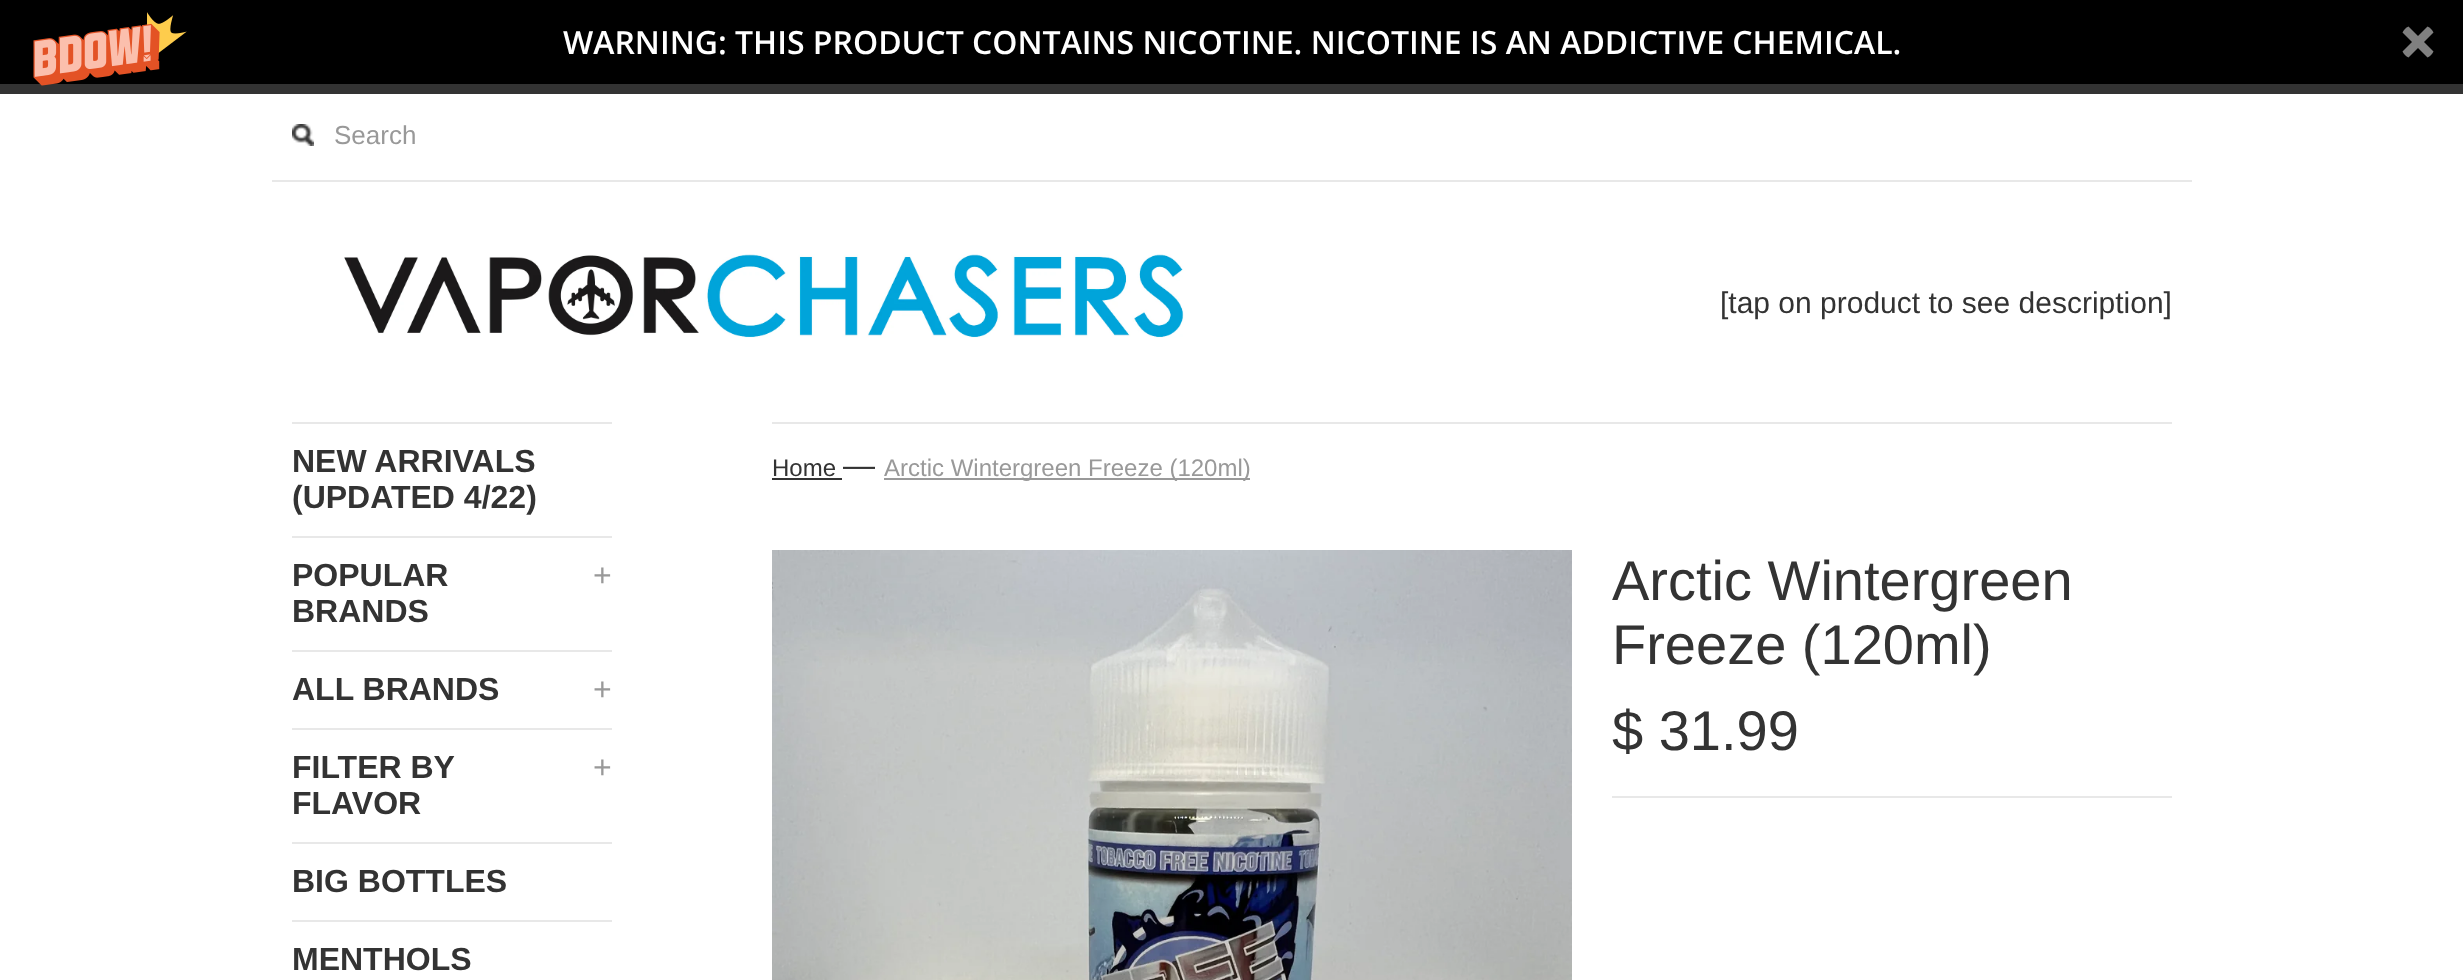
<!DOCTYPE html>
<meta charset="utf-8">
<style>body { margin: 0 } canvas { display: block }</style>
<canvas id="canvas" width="2463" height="980"></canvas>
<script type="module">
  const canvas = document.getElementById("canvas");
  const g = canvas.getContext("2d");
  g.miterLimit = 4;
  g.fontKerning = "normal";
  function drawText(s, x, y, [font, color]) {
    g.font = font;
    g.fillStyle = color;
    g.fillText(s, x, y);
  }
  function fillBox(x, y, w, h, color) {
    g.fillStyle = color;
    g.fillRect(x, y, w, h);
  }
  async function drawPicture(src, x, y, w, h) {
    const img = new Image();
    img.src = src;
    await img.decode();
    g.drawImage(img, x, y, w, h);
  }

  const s1 = ["600 32px Open Sans", "#FFFFFF"];
  const s2 = ["26px Liberation Sans", "#999999"];
  const s3 = ["30px Liberation Sans", "#333333"];
  const s4 = ["bold 32px Liberation Sans", "#333333"];
  const s5 = ["32px Liberation Sans", "#999999"];
  const s6 = ["24px Liberation Sans", "#333333"];
  const s7 = ["32px Liberation Sans", "#333333"];
  const s8 = ["24px Liberation Sans", "#999999"];
  const s9 = ["56px Liberation Sans", "#333333"];

  fillBox(0, 0, 2463, 980, "#FFFFFF");
  fillBox(0, 0, 2463, 84, "#000000");
  fillBox(0, 84, 2463, 10, "#333333");
  await drawPicture("pic1.png", 33, 12, 154, 74);
  drawText("WARNING: THIS PRODUCT CONTAINS NICOTINE. NICOTINE IS AN ADDICTIVE CHEMICAL.", 563, 54, s1);
  g.fillStyle = "#808080";
  g.beginPath();
  g.moveTo(2402.5, 51.5);
  g.lineTo(2427.5, 26.5);
  g.bezierCurveTo(2430, 27.5, 2432.5, 30, 2433.5, 32.5);
  g.lineTo(2408.5, 57.5);
  g.bezierCurveTo(2406, 56.5, 2403.5, 54, 2402.5, 51.5);
  g.closePath();
  g.fill();
  g.beginPath();
  g.moveTo(2433.5, 51.5);
  g.bezierCurveTo(2432.5, 54, 2430, 56.5, 2427.5, 57.5);
  g.lineTo(2402.5, 32.5);
  g.bezierCurveTo(2403.5, 30, 2406, 27.5, 2408.5, 26.5);
  g.closePath();
  g.fill();
  fillBox(272, 180, 1920, 2, "#E8E8E8");
  await drawPicture("pic2.png", 292, 124, 22, 22);
  drawText("Search", 334, 144, s2);
  await drawPicture("pic3.png", 344, 254, 840, 84);
  drawText("[tap on product to see description]", 1720, 313, s3);
  fillBox(292, 422, 320, 2, "#E8E8E8");
  drawText("NEW ARRIVALS", 292, 472, s4);
  drawText("(UPDATED 4/22)", 292, 508, s4);
  fillBox(292, 536, 320, 2, "#E8E8E8");
  drawText("POPULAR", 292, 586, s4);
  drawText("+", 593, 586, s5);
  drawText("BRANDS", 292, 622, s4);
  fillBox(292, 650, 320, 2, "#E8E8E8");
  drawText("ALL BRANDS", 292, 700, s4);
  drawText("+", 593, 700, s5);
  fillBox(292, 728, 320, 2, "#E8E8E8");
  drawText("FILTER BY", 292, 778, s4);
  drawText("+", 593, 778, s5);
  drawText("FLAVOR", 292, 814, s4);
  fillBox(292, 842, 320, 2, "#E8E8E8");
  drawText("BIG BOTTLES", 292, 892, s4);
  fillBox(292, 920, 320, 2, "#E8E8E8");
  drawText("MENTHOLS", 292, 970, s4);
  fillBox(772, 422, 1400, 2, "#E8E8E8");
  drawText("Home", 772, 476, s6);
  fillBox(772, 478, 70, 2, "#333333");
  drawText("—", 843, 476, s7);
  fillBox(884, 478, 366, 2, "#999999");
  drawText("Arctic Wintergreen Freeze (120ml)", 884, 476, s8);
  await drawPicture("pic4.png", 772, 550, 800, 430);
  drawText("Arctic Wintergreen", 1612, 600, s9);
  drawText("Freeze (120ml)", 1612, 664, s9);
  drawText("$ 31.99", 1612, 750, s9);
  fillBox(1612, 796, 560, 2, "#E8E8E8");
</script>
